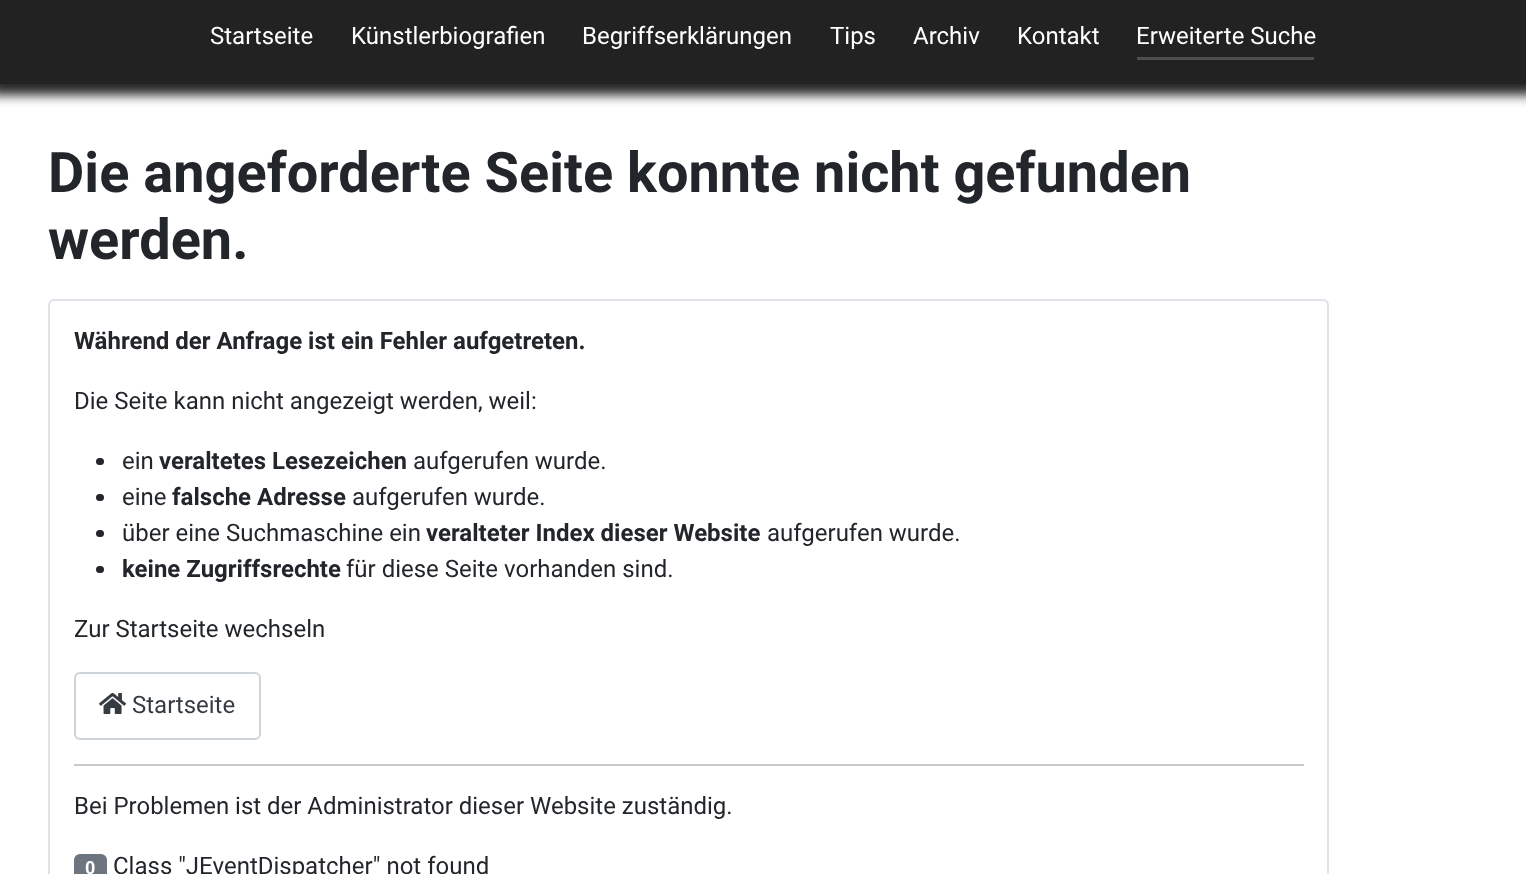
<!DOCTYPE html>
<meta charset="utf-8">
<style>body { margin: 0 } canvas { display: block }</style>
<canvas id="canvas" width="1526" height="874"></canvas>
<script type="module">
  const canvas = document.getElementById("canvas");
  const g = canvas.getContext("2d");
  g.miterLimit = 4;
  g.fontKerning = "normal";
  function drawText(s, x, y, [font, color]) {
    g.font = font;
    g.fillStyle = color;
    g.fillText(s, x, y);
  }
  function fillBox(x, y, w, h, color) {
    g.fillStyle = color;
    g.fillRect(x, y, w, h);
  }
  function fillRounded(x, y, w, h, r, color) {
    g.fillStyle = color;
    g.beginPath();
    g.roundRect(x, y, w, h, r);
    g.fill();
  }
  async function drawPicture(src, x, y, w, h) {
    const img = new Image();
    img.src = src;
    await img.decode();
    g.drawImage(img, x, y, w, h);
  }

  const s1 = ["24px Roboto", "#FFFFFF"];
  const s2 = ["bold 55.9px Roboto", "#22262A"];
  const s3 = ["bold 24px Roboto", "#22262A"];
  const s4 = ["24px Roboto", "#22262A"];
  const s5 = ["24px Roboto", "#353B41"];
  const s6 = ["bold 18px Roboto", "#FFFFFF"];

  fillBox(0, 0, 1526, 874, "#FFFFFF");
  g.fillStyle = "rgba(0, 0, 0, 0.85)";
  g.filter = "blur(6px)";
  g.beginPath();
  g.rect(-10, -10, 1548, 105);
  g.fill();
  g.filter = "none";
  fillBox(0, 0, 1526, 84, "#222222");
  drawText("Startseite", 210, 44, s1);
  drawText("Künstlerbiografien", 351, 44, s1);
  drawText("Begriffserklärungen", 582, 44, s1);
  drawText("Tips", 830, 44, s1);
  drawText("Archiv", 913, 44, s1);
  drawText("Kontakt", 1017, 44, s1);
  drawText("Erweiterte Suche", 1136, 44, s1);
  fillBox(1137, 57, 177, 3, "#4E4E4E");
  drawText("Die angeforderte Seite konnte nicht gefunden", 48, 192, s2);
  drawText("werden.", 48, 259, s2);
  g.beginPath();
  g.roundRect(49, 300, 1279, 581, 5);
  g.strokeStyle = "#DFE3E7";
  g.lineWidth = 2;
  g.stroke();
  drawText("Während der Anfrage ist ein Fehler aufgetreten.", 74, 349, s3);
  drawText("Die Seite kann nicht angezeigt werden, weil:", 74, 409, s4);
  fillRounded(96, 458, 8, 7, 3.5, "#22262A");
  drawText("ein", 122, 469, s4);
  drawText("veraltetes Lesezeichen", 159, 469, s3);
  drawText("aufgerufen wurde.", 413, 469, s4);
  fillRounded(96, 494, 8, 7, 3.5, "#22262A");
  drawText("eine", 122, 505, s4);
  drawText("falsche Adresse", 172, 505, s3);
  drawText("aufgerufen wurde.", 352, 505, s4);
  fillRounded(96, 530, 8, 7, 3.5, "#22262A");
  drawText("über eine Suchmaschine ein", 122, 541, s4);
  drawText("veralteter Index dieser Website", 426, 541, s3);
  drawText("aufgerufen wurde.", 767, 541, s4);
  fillRounded(96, 566, 8, 7, 3.5, "#22262A");
  drawText("keine Zugriffsrechte", 122, 577, s3);
  drawText("für diese Seite vorhanden sind.", 346, 577, s4);
  drawText("Zur Startseite wechseln", 74, 637, s4);
  g.beginPath();
  g.roundRect(75, 673, 185, 66, 5);
  g.strokeStyle = "#CED4DA";
  g.stroke();
  await drawPicture("pic1.png", 99, 693, 27, 21);
  drawText("Startseite", 132, 713, s5);
  fillBox(74, 764, 1230, 2, "#C8C9CA");
  drawText("Bei Problemen ist der Administrator dieser Website zuständig.", 74, 814, s4);
  fillRounded(74, 854, 33, 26, 6, "#6D757E");
  drawText("0", 85, 874, s6);
  drawText("Class \"JEventDispatcher\" not found", 113, 874, s4);
</script>
